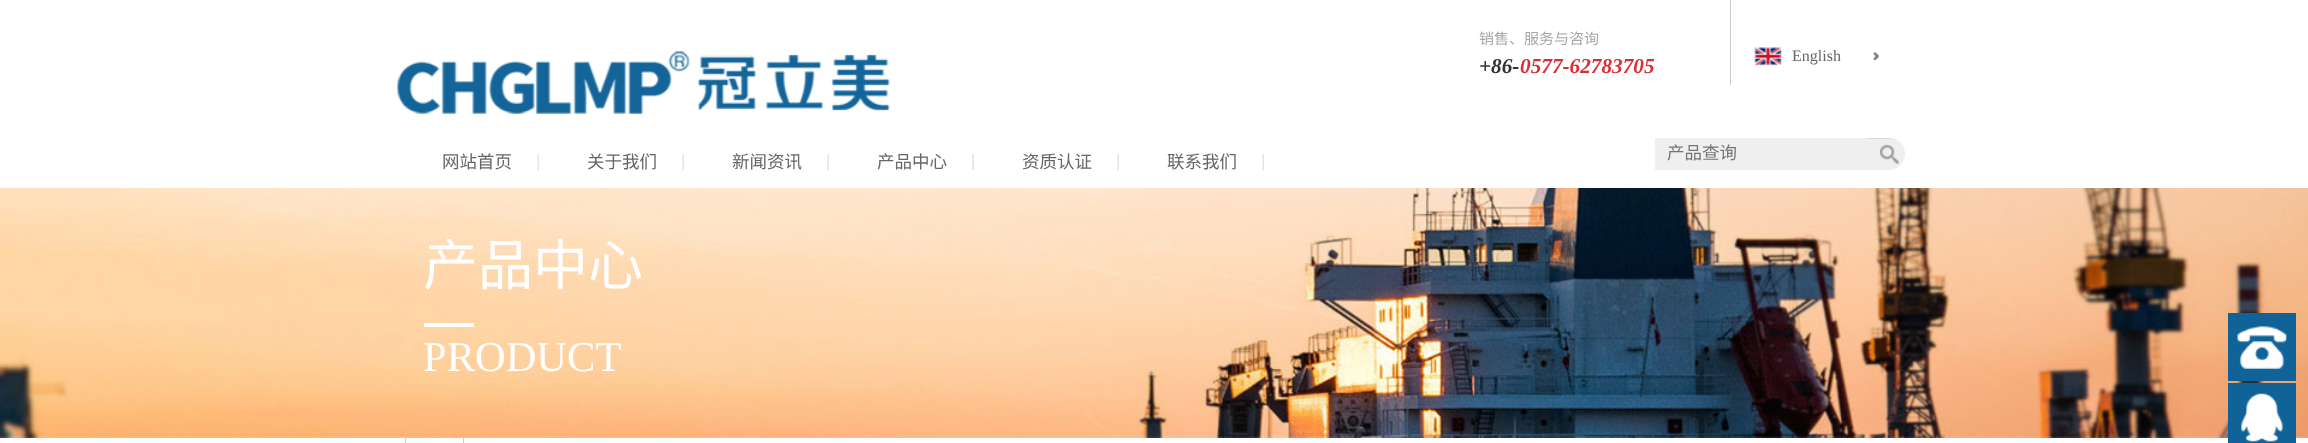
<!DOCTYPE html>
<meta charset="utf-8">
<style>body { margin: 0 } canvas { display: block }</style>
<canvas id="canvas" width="2308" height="443"></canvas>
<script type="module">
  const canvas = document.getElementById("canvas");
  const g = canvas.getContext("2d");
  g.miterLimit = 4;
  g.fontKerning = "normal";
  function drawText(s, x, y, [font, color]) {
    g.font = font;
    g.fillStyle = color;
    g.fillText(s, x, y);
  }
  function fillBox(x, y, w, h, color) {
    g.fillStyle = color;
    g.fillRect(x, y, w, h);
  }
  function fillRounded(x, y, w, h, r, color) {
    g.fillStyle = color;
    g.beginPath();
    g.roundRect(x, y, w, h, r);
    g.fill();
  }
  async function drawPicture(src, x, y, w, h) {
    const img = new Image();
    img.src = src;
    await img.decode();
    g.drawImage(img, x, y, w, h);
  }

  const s1 = ["15px Noto Sans CJK SC", "#A7A7A7"];
  const s2 = ["italic bold 21.25px Liberation Serif", "#333333"];
  const s3 = ["italic bold 21.25px Liberation Serif", "#D43138"];
  const s4 = ["16px Liberation Serif", "#666666"];
  const s5 = ["17.5px Noto Sans CJK SC", "#666666"];
  const s6 = ["17.5px Noto Sans CJK SC", "#757575"];
  const s7 = ["55px Noto Sans CJK SC", "#FFFFFF"];
  const s8 = ["42.5px Liberation Serif", "#FFFFFF"];

  fillBox(0, 0, 2308, 443, "#FFFFFF");
  await drawPicture("pic1.png", 397, 51, 493, 63);
  fillBox(1730, 0, 1, 85, "#CCCCCC");
  drawText("销售、服务与咨询", 1479, 44, s1);
  drawText("+86-", 1479, 73, s2);
  drawText("0577-62783705", 1520, 73, s3);
  await drawPicture("pic2.png", 1754, 47, 28, 19);
  drawText("English", 1792, 61, s4);
  await drawPicture("pic3.png", 1873, 52, 6, 8);
  await drawPicture("pic4.png", 537, 153, 2, 18);
  drawText("网站首页", 442, 168, s5);
  await drawPicture("pic4.png", 682, 153, 2, 18);
  drawText("关于我们", 587, 168, s5);
  await drawPicture("pic4.png", 827, 153, 2, 18);
  drawText("新闻资讯", 732, 168, s5);
  await drawPicture("pic5.png", 972, 153, 2, 17);
  drawText("产品中心", 877, 168, s5);
  await drawPicture("pic4.png", 1117, 153, 2, 18);
  drawText("资质认证", 1022, 168, s5);
  await drawPicture("pic4.png", 1262, 153, 2, 18);
  drawText("联系我们", 1167, 168, s5);
  fillRounded(1655, 138, 250, 32, 16, "#EFEFEF");
  g.fillStyle = "rgba(0, 0, 0, 0.08)";
  g.beginPath();
  g.moveTo(1672, 139);
  g.lineTo(1890, 139);
  g.bezierCurveTo(1894, 139, 1897, 140, 1900, 143);
  g.bezierCurveTo(1897, 140, 1893, 138, 1889, 138);
  g.lineTo(1671, 138);
  g.bezierCurveTo(1662, 138, 1655, 145, 1655, 154);
  g.bezierCurveTo(1655, 159, 1658, 164, 1662, 167);
  g.bezierCurveTo(1651, 158, 1657, 139, 1672, 139);
  g.closePath();
  g.fill();
  fillBox(1655, 138, 213, 32, "#EFEFEF");
  drawText("产品查询", 1667, 159, s6);
  await drawPicture("pic6.png", 1879, 144, 20, 20);
  await drawPicture("pic7.png", 0, 188, 2308, 250);
  drawText("产品中心", 423, 285, s7);
  fillBox(424, 323, 50, 4, "#FFFFFF");
  drawText("PRODUCT", 423, 371, s8);
  fillBox(2228, 313, 68, 68, "#106398");
  await drawPicture("pic8.png", 2237, 326, 50, 43);
  fillBox(2228, 383, 68, 60, "#106398");
  await drawPicture("pic9.png", 2241, 393, 42, 49);
  fillBox(463, 438, 1, 5, "#CDCDCD");
  fillBox(405, 438, 1, 5, "#CDCDCD");
</script>
